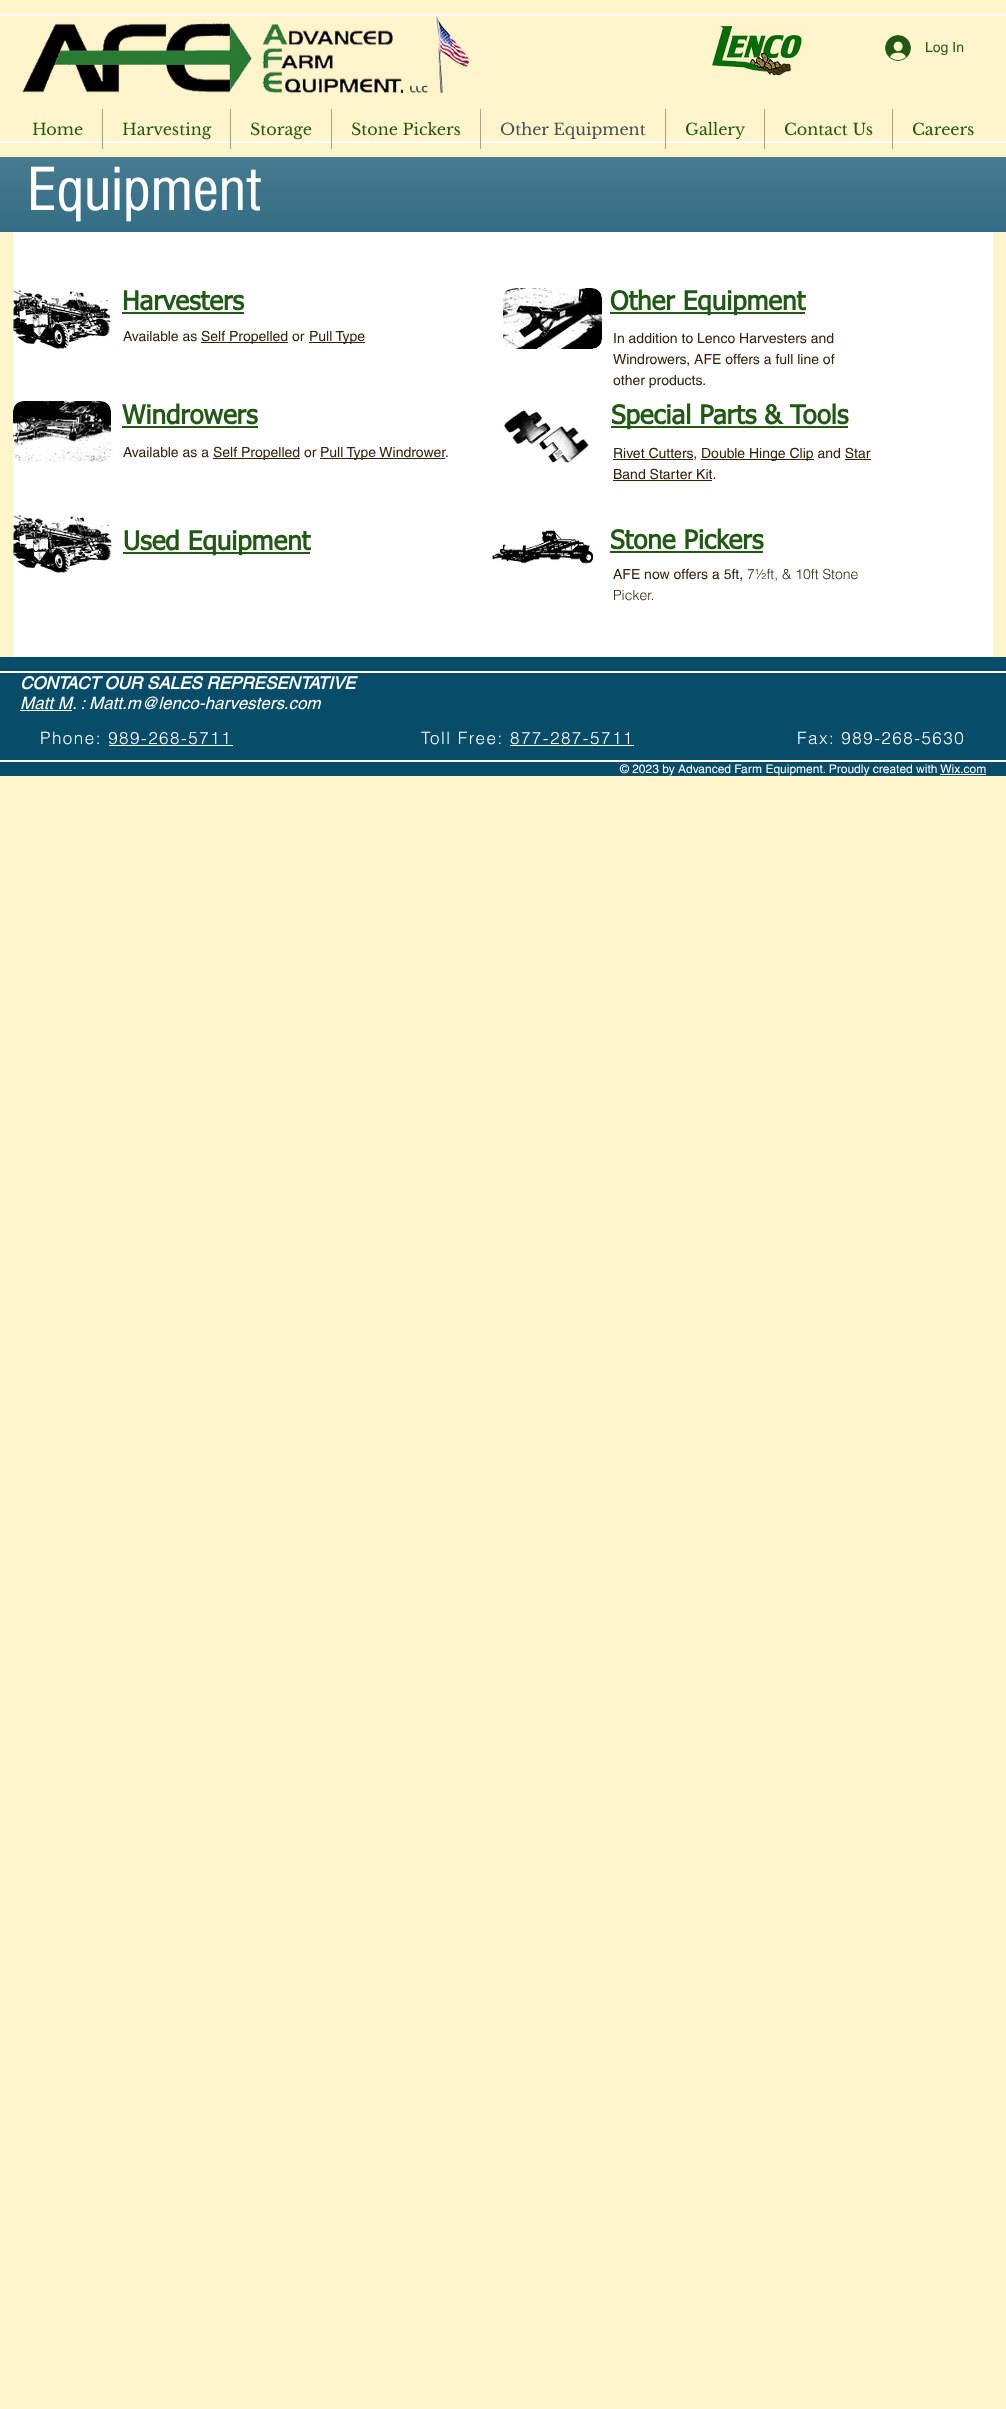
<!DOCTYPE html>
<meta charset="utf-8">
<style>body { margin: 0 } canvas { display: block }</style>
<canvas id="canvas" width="1006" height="2409"></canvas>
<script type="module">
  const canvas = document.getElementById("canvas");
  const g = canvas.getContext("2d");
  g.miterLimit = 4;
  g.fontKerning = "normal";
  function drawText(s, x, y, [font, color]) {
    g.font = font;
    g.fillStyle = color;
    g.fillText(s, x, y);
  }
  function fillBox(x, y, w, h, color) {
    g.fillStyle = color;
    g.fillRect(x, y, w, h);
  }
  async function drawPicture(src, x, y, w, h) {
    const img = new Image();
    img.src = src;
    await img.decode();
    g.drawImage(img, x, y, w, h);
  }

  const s1 = ["14px helvetica", "#205814"];
  const s2 = ["16px Libre Baskerville", "#205814"];
  const s3 = ["16px Libre Baskerville", "#405158"];
  const s4 = ["65px 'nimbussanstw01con'", "#FFFFFF"];
  const s5 = ["bold 26px tahoma", "#205814"];
  const s6 = ["14px helvetica", "#342109"];
  const s7 = ["300 14px helvetica", "#342109"];
  const s8 = ["italic bold 17px helvetica", "#FFFFFF"];
  const s9 = ["italic 17px helvetica", "#FFFFFF"];
  const s10 = ["300 17px helvetica", "#FFFFFF"];
  const s11 = ["12px helvetica", "#FFFFFF"];

  fillBox(0, 0, 1006, 2409, "#FFF4CA");
  fillBox(0, 14, 1006, 2, "#FFFFFF");
  fillBox(0, 141, 1006, 2, "#FFFFFF");
  await drawPicture("pic1.png", 22, 23, 407, 70);
  await drawPicture("pic2.png", 436, 16, 33, 77);
  await drawPicture("pic3.png", 712, 25, 92, 51);
  await drawPicture("pic4.png", 885, 35, 26, 26);
  drawText("Log In", 925, 52, s1);
  drawText("Home", 32, 135, s2);
  fillBox(102, 109, 1, 40, "#B39E82");
  drawText("Harvesting", 122, 135, s2);
  fillBox(230, 109, 1, 40, "#B39E82");
  drawText("Storage", 250, 135, s2);
  fillBox(331, 109, 1, 40, "#B39E82");
  drawText("Stone Pickers", 351, 135, s2);
  fillBox(480, 109, 1, 40, "#B39E82");
  drawText("Other Equipment", 500, 135, s3);
  fillBox(665, 109, 1, 40, "#B39E82");
  drawText("Gallery", 685, 135, s2);
  fillBox(764, 109, 1, 40, "#B39E82");
  drawText("Contact Us", 784, 135, s2);
  fillBox(892, 109, 1, 40, "#B39E82");
  drawText("Careers", 912, 135, s2);
  fillBox(0, 157, 1006, 75, "#074D6A");
  await drawPicture("pic5.png", 0, 157, 1006, 75);
  drawText("Equipment", 27, 210, s4);
  fillBox(13, 232, 980, 425, "#FFFFFF");
  await drawPicture("pic6.png", 13, 290, 98, 59);
  drawText("Harvesters", 122, 310, s5);
  fillBox(122, 312, 122, 2, "#205814");
  await drawPicture("pic7.png", 503, 288, 99, 61);
  fillBox(610, 312, 195, 2, "#205814");
  drawText("Other Equipment", 610, 310, s5);
  drawText("Available as", 123, 341, s6);
  fillBox(201, 342, 87, 1, "#342109");
  drawText("Self Propelled or", 201, 341, s6);
  fillBox(309, 342, 56, 1, "#342109");
  drawText("Pull Type", 309, 341, s6);
  drawText("In addition to Lenco Harvesters and", 613, 343, s6);
  drawText("Windrowers, AFE offers a full line of", 613, 364, s6);
  drawText("other products.", 613, 385, s6);
  await drawPicture("pic8.png", 13, 401, 98, 61);
  drawText("Windrowers", 122, 424, s5);
  fillBox(122, 426, 136, 2, "#205814");
  await drawPicture("pic9.png", 503, 410, 86, 53);
  fillBox(611, 426, 237, 2, "#205814");
  drawText("Special Parts & Tools", 611, 424, s5);
  drawText("Available as a", 123, 457, s6);
  fillBox(213, 458, 87, 1, "#342109");
  drawText("Self Propelled or", 213, 457, s6);
  fillBox(320, 458, 125, 1, "#342109");
  drawText("Pull Type Windrower", 320, 457, s6);
  drawText(".", 445, 457, s6);
  fillBox(613, 459, 80, 1, "#342109");
  drawText("Rivet Cutters,", 613, 458, s6);
  fillBox(701, 459, 113, 1, "#342109");
  drawText("Double Hinge Clip and Star", 701, 458, s6);
  fillBox(845, 459, 26, 1, "#342109");
  drawText("Band Starter Kit.", 613, 479, s6);
  fillBox(613, 480, 99, 1, "#342109");
  await drawPicture("pic10.png", 13, 515, 99, 58);
  fillBox(123, 552, 187, 2, "#205814");
  drawText("Used Equipment", 123, 550, s5);
  await drawPicture("pic11.png", 491, 530, 104, 36);
  drawText("Stone Pickers", 610, 549, s5);
  fillBox(610, 551, 153, 2, "#205814");
  drawText("AFE now offers a 5ft,", 613, 579, s6);
  drawText("7½ft, & 10ft Stone", 747, 579, s7);
  drawText("Picker.", 613, 600, s7);
  fillBox(0, 657, 1006, 119, "#074D6A");
  fillBox(0, 671, 1006, 2, "#FFFFFF");
  fillBox(0, 760, 1006, 2, "#FFFFFF");
  drawText("CONTACT OUR SALES REPRESENTATIVE", 20, 689, s8);
  drawText("Matt M. : Matt.m@lenco-harvesters.com", 20, 709, s9);
  fillBox(20, 710, 52, 1, "#FFFFFF");
  g.letterSpacing = "1.5px";
  drawText("Phone: 989-268-5711", 40, 744, s10);
  drawText("Toll Free: 877-287-5711", 421, 744, s10);
  drawText("Fax: 989-268-5630", 797, 744, s10);
  fillBox(109, 745, 124, 1, "#FFFFFF");
  fillBox(510, 745, 124, 1, "#FFFFFF");
  g.letterSpacing = "0px";
  drawText("© 2023 by Advanced Farm Equipment. Proudly created with Wix.com", 620, 773, s11);
  fillBox(940, 774, 46, 1, "#FFFFFF");
</script>
